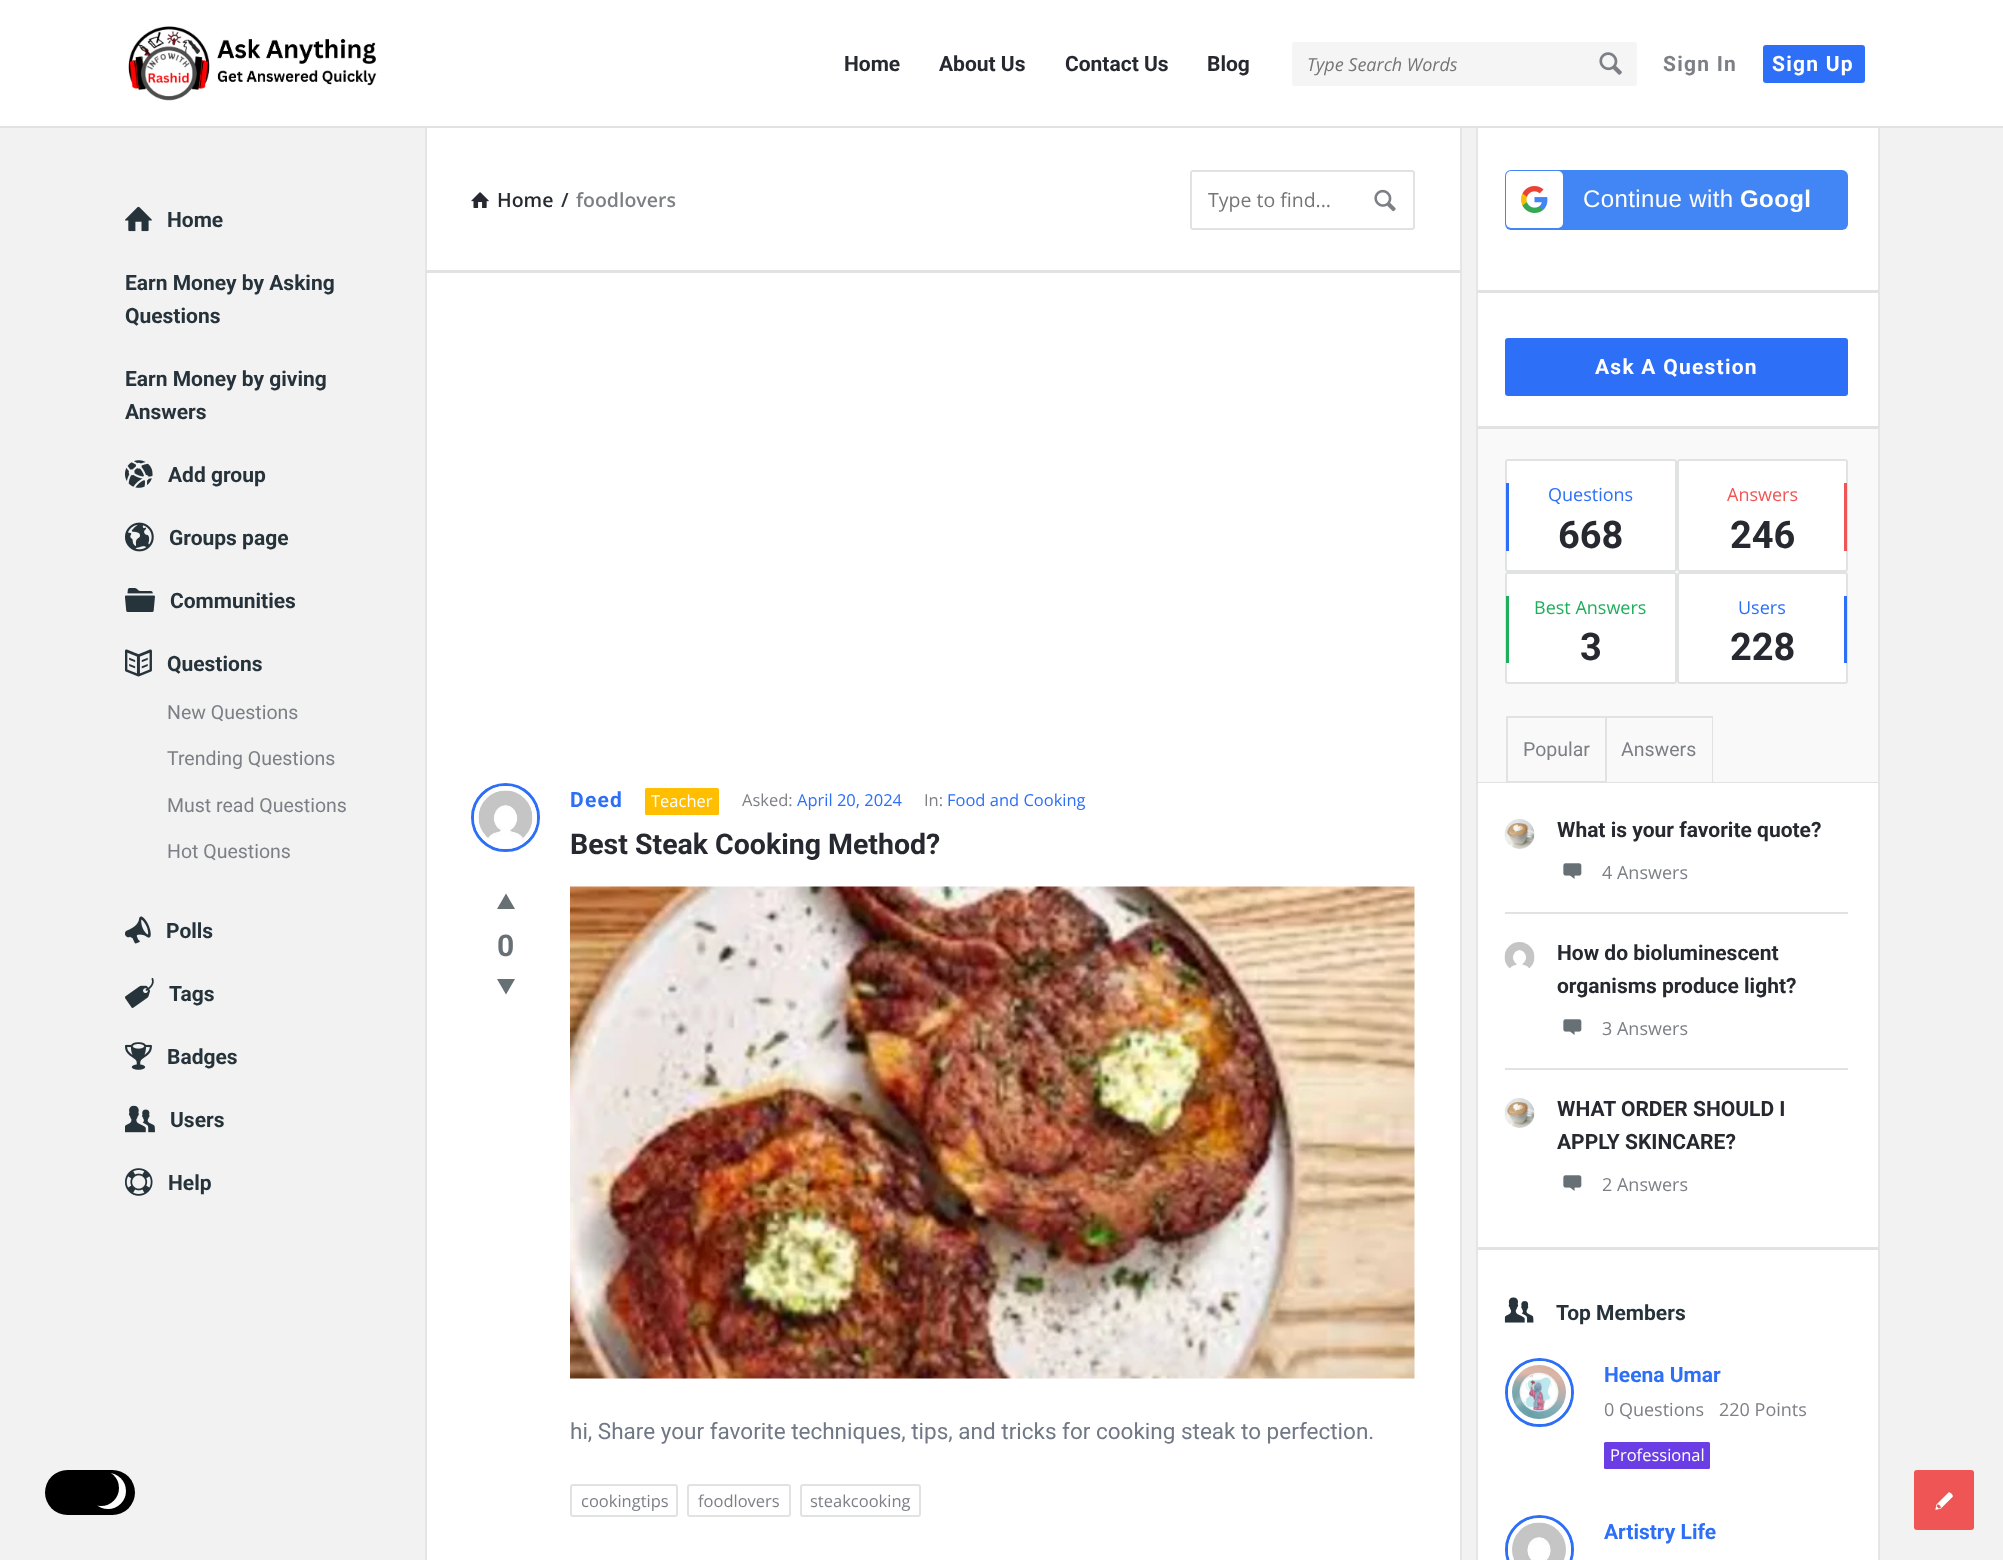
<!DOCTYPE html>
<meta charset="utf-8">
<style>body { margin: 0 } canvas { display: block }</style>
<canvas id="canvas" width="2003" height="1560"></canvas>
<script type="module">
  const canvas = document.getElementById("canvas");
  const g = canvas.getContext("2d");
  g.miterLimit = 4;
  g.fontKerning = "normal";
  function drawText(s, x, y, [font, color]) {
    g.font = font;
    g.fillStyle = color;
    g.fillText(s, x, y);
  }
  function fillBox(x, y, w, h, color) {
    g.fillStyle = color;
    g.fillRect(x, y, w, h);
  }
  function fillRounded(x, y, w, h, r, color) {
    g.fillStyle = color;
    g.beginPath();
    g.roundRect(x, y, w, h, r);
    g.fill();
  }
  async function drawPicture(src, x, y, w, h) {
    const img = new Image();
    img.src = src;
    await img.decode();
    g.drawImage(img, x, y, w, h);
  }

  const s1 = ["bold 21px Roboto", "#272930"];
  const s2 = ["italic 18px Open Sans", "#757575"];
  const s3 = ["bold 21px Roboto", "#7C7F85"];
  const s4 = ["bold 21px Roboto", "#FFFFFF"];
  const s5 = ["bold 21px Roboto", "#26333B"];
  const s6 = ["19.5px Roboto", "#7C7F85"];
  const s7 = ["600 19.5px Open Sans", "#272930"];
  const s8 = ["600 19.5px Open Sans", "#26333B"];
  const s9 = ["600 19.5px Open Sans", "#7C7F85"];
  const s10 = ["19.5px Open Sans", "#757575"];
  const s11 = ["bold 21px Roboto", "#2D6FF7"];
  const s12 = ["16.5px Open Sans", "#FFFFFF"];
  const s13 = ["16.5px Open Sans", "#7C7F85"];
  const s14 = ["16.5px Open Sans", "#2D6FF7"];
  const s15 = ["bold 28.5px Roboto", "#272930"];
  const s16 = ["bold 30px Roboto", "#677075"];
  const s17 = ["22.5px Roboto", "#707885"];
  const s18 = ["24px Liberation Sans", "#FFFFFF"];
  const s19 = ["bold 24px Liberation Sans", "#FFFFFF"];
  const s20 = ["18px Open Sans", "#2D6FF7"];
  const s21 = ["bold 38px Roboto", "#272930"];
  const s22 = ["18px Open Sans", "#F05555"];
  const s23 = ["18px Open Sans", "#1FAE5B"];
  const s24 = ["18px Open Sans", "#7C7F85"];

  fillBox(0, 0, 2003, 1560, "#F2F2F2");
  fillRounded(45, 1470, 90, 45, 22.5, "#000000");
  g.fillStyle = "#FFFFFF";
  g.beginPath();
  g.arc(108, 1491, 18, 0, Math.PI * 2);
  g.fill();
  g.fillStyle = "#000000";
  g.beginPath();
  g.arc(101, 1488, 18, 0, Math.PI * 2);
  g.fill();
  fillBox(0, 0, 2003, 126, "#FFFFFF");
  fillBox(0, 126, 2003, 2, "#E1E3E3");
  await drawPicture("pic1.png", 128, 26, 249, 75);
  drawText("Home", 844, 71, s1);
  drawText("About Us", 939, 71, s1);
  drawText("Contact Us", 1065, 71, s1);
  drawText("Blog", 1207, 71, s1);
  fillRounded(1292, 42, 345, 44, 3, "#F5F5F5");
  drawText("Type Search Words", 1307, 71, s2);
  await drawPicture("pic2.png", 1599, 52, 23, 23);
  g.letterSpacing = "1.25px";
  drawText("Sign In", 1663, 71, s3);
  fillRounded(1763, 45, 102, 38, 3, "#2D6FF7");
  drawText("Sign Up", 1772, 71, s4);
  await drawPicture("pic3.png", 125, 206, 27, 26);
  g.letterSpacing = "0px";
  drawText("Home", 167, 227, s5);
  drawText("Earn Money by Asking", 125, 290, s5);
  drawText("Questions", 125, 323, s5);
  drawText("Earn Money by giving", 125, 386, s5);
  drawText("Answers", 125, 419, s5);
  await drawPicture("pic4.png", 125, 460, 28, 28);
  drawText("Add group", 168, 482, s5);
  await drawPicture("pic5.png", 125, 522, 29, 30);
  drawText("Groups page", 169, 545, s5);
  await drawPicture("pic6.png", 125, 588, 30, 24);
  drawText("Communities", 170, 608, s5);
  await drawPicture("pic7.png", 125, 649, 27, 28);
  drawText("Questions", 167, 671, s5);
  drawText("New Questions", 167, 719, s6);
  drawText("Trending Questions", 167, 765, s6);
  drawText("Must read Questions", 167, 812, s6);
  drawText("Hot Questions", 167, 858, s6);
  await drawPicture("pic8.png", 125, 916, 26, 28);
  drawText("Polls", 166, 938, s5);
  await drawPicture("pic9.png", 125, 978, 29, 30);
  drawText("Tags", 169, 1001, s5);
  await drawPicture("pic10.png", 125, 1042, 27, 28);
  drawText("Badges", 167, 1064, s5);
  await drawPicture("pic11.png", 125, 1105, 30, 28);
  drawText("Users", 170, 1127, s5);
  await drawPicture("pic12.png", 125, 1168, 28, 28);
  drawText("Help", 168, 1190, s5);
  fillBox(427, 128, 1033, 1432, "#FFFFFF");
  fillBox(1460, 128, 2, 1432, "#E4E5E6");
  fillBox(425, 128, 2, 1432, "#E4E5E6");
  fillBox(426, 270, 1034, 3, "#E1E3E3");
  await drawPicture("pic13.png", 471, 192, 18, 16);
  drawText("Home", 497, 207, s7);
  drawText("/", 561, 207, s8);
  drawText("foodlovers", 576, 207, s9);
  g.beginPath();
  g.roundRect(1191, 171, 223, 58, 2);
  g.strokeStyle = "#E1E3E3";
  g.lineWidth = 2;
  g.stroke();
  drawText("Type to find...", 1208, 207, s10);
  await drawPicture("pic14.png", 1374, 189, 22, 23);
  g.beginPath();
  g.arc(505.5, 817.5, 33, 0, Math.PI * 2);
  g.strokeStyle = "#2D6FF7";
  g.lineWidth = 3;
  g.stroke();
  g.beginPath();
  g.arc(505.5, 817.5, 29, 0, Math.PI * 2);
  g.strokeStyle = "#FFFFFF";
  g.lineWidth = 5;
  g.stroke();
  await drawPicture("pic15.png", 478, 790, 55, 49);
  g.letterSpacing = "1.25px";
  drawText("Deed", 570, 807, s11);
  fillRounded(645, 788, 74, 27, 1.5, "#FFBF00");
  g.letterSpacing = "0px";
  drawText("Teacher", 651, 807, s12);
  drawText("Asked:", 742, 806, s13);
  drawText("April 20, 2024", 797, 806, s14);
  drawText("In:", 924, 806, s13);
  drawText("Food and Cooking", 947, 806, s14);
  drawText("Best Steak Cooking Method?", 570, 854, s15);
  g.fillStyle = "#677075";
  g.beginPath();
  g.moveTo(497, 909);
  g.lineTo(506, 893.5);
  g.lineTo(515, 909);
  g.closePath();
  g.fill();
  drawText("0", 497, 956, s16);
  g.beginPath();
  g.moveTo(515, 979);
  g.lineTo(506, 994.5);
  g.lineTo(497, 979);
  g.closePath();
  g.fill();
  await drawPicture("pic16.png", 570, 886, 845, 493);
  drawText("hi, Share your favorite techniques, tips, and tricks for cooking steak to perfection.", 570, 1439, s17);
  g.beginPath();
  g.roundRect(571, 1485, 106, 31, 2);
  g.strokeStyle = "#E1E3E3";
  g.lineWidth = 2;
  g.stroke();
  drawText("cookingtips", 581, 1507, s13);
  g.beginPath();
  g.roundRect(688, 1485, 102, 31, 2);
  g.stroke();
  drawText("foodlovers", 698, 1507, s13);
  g.beginPath();
  g.roundRect(801, 1485, 119, 31, 2);
  g.stroke();
  drawText("steakcooking", 810, 1507, s13);
  fillBox(1478, 128, 400, 1432, "#FFFFFF");
  fillBox(1878, 128, 2, 1432, "#E4E5E6");
  fillBox(1476, 128, 2, 1432, "#E4E5E6");
  fillBox(1478, 290, 400, 3, "#E1E3E3");
  fillRounded(1505, 170, 343, 60, 6, "#4285F4");
  fillRounded(1506, 171, 57, 57, 5, "#FFFFFF");
  await drawPicture("pic17.png", 1521, 186, 27, 27);
  g.letterSpacing = "0.4px";
  drawText("Continue with", 1583, 207, s18);
  drawText("Googl", 1740, 207, s19);
  fillBox(1478, 426, 400, 3, "#E1E3E3");
  fillRounded(1505, 338, 343, 58, 3, "#2D6FF7");
  g.letterSpacing = "1.25px";
  drawText("Ask A Question", 1595, 374, s4);
  fillBox(1478, 429, 400, 353, "#F9F9F9");
  g.fillStyle = "#FFFFFF";
  g.beginPath();
  g.roundRect(1506, 460, 170, 111, 2);
  g.fill();
  g.stroke();
  fillBox(1506, 483, 3, 68, "#2D6FF7");
  g.letterSpacing = "0px";
  drawText("Questions", 1548, 501, s20);
  drawText("668", 1558, 548, s21);
  g.fillStyle = "#FFFFFF";
  g.beginPath();
  g.roundRect(1678, 460, 169, 111, 2);
  g.fill();
  g.stroke();
  drawText("Answers", 1727, 501, s22);
  drawText("246", 1730, 548, s21);
  fillBox(1844, 483, 3, 68, "#F05555");
  g.fillStyle = "#FFFFFF";
  g.beginPath();
  g.roundRect(1506, 573, 170, 110, 2);
  g.fill();
  g.stroke();
  fillBox(1506, 596, 3, 67, "#1FAE5B");
  drawText("Best Answers", 1534, 614, s23);
  drawText("3", 1580, 660, s21);
  g.fillStyle = "#FFFFFF";
  g.beginPath();
  g.roundRect(1678, 573, 169, 110, 2);
  g.fill();
  g.stroke();
  drawText("Users", 1738, 614, s20);
  drawText("228", 1730, 660, s21);
  fillBox(1844, 596, 3, 67, "#2D6FF7");
  fillBox(1478, 1247, 400, 3, "#E1E3E3");
  fillBox(1476, 782, 402, 2, "#E1E3E3");
  g.strokeRect(1507, 717, 99, 65);
  drawText("Popular", 1523, 756, s6);
  fillBox(1607, 716, 106, 2, "#E1E3E3");
  fillBox(1712, 716, 1, 67, "#E1E3E3");
  drawText("Answers", 1621, 756, s6);
  fillBox(1478, 783, 400, 1, "#FFFFFF");
  fillBox(1505, 912, 343, 2, "#E1E3E3");
  await drawPicture("pic18.png", 1504, 819, 31, 30);
  drawText("What is your favorite quote?", 1557, 837, s1);
  await drawPicture("pic19.png", 1563, 863, 19, 16);
  drawText("4 Answers", 1602, 879, s24);
  fillBox(1505, 1068, 343, 2, "#E1E3E3");
  await drawPicture("pic20.png", 1504, 942, 31, 27);
  drawText("How do bioluminescent", 1557, 960, s1);
  drawText("organisms produce light?", 1557, 993, s1);
  await drawPicture("pic19.png", 1563, 1019, 19, 16);
  drawText("3 Answers", 1602, 1035, s24);
  await drawPicture("pic18.png", 1504, 1098, 31, 30);
  drawText("WHAT ORDER SHOULD I", 1557, 1116, s1);
  drawText("APPLY SKINCARE?", 1557, 1149, s1);
  await drawPicture("pic19.png", 1563, 1175, 19, 16);
  drawText("2 Answers", 1602, 1191, s24);
  await drawPicture("pic21.png", 1504, 1297, 30, 26);
  drawText("Top Members", 1556, 1320, s5);
  g.beginPath();
  g.arc(1539.5, 1392.5, 33, 0, Math.PI * 2);
  g.strokeStyle = "#2D6FF7";
  g.lineWidth = 3;
  g.stroke();
  g.fillStyle = "#FFFFFF";
  g.beginPath();
  g.moveTo(1540, 1361);
  g.bezierCurveTo(1557, 1361, 1571, 1375, 1571, 1392);
  g.bezierCurveTo(1571, 1410, 1557, 1424, 1540, 1424);
  g.bezierCurveTo(1522, 1424, 1508, 1410, 1508, 1392);
  g.bezierCurveTo(1508, 1375, 1522, 1361, 1540, 1361);
  g.closePath();
  g.fill();
  await drawPicture("pic22.png", 1512, 1365, 54, 54);
  drawText("Heena Umar", 1604, 1382, s11);
  drawText("0 Questions", 1604, 1416, s24);
  drawText("220 Points", 1719, 1416, s24);
  fillRounded(1604, 1442, 106, 27, 1.5, "#6B3DE4");
  drawText("Professional", 1610, 1461, s12);
  g.beginPath();
  g.arc(1539.5, 1549.5, 33, 0, Math.PI * 2);
  g.stroke();
  g.beginPath();
  g.moveTo(1540, 1518);
  g.bezierCurveTo(1557, 1518, 1571, 1532, 1571, 1550);
  g.bezierCurveTo(1571, 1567, 1557, 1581, 1540, 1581);
  g.bezierCurveTo(1522, 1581, 1508, 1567, 1508, 1550);
  g.bezierCurveTo(1508, 1532, 1522, 1518, 1540, 1518);
  g.closePath();
  g.fill();
  await drawPicture("pic23.png", 1512, 1522, 54, 38);
  drawText("Artistry Life", 1604, 1539, s11);
  fillRounded(1914, 1470, 60, 60, 3, "#F05555");
  await drawPicture("pic24.png", 1935, 1492, 18, 18);
</script>
